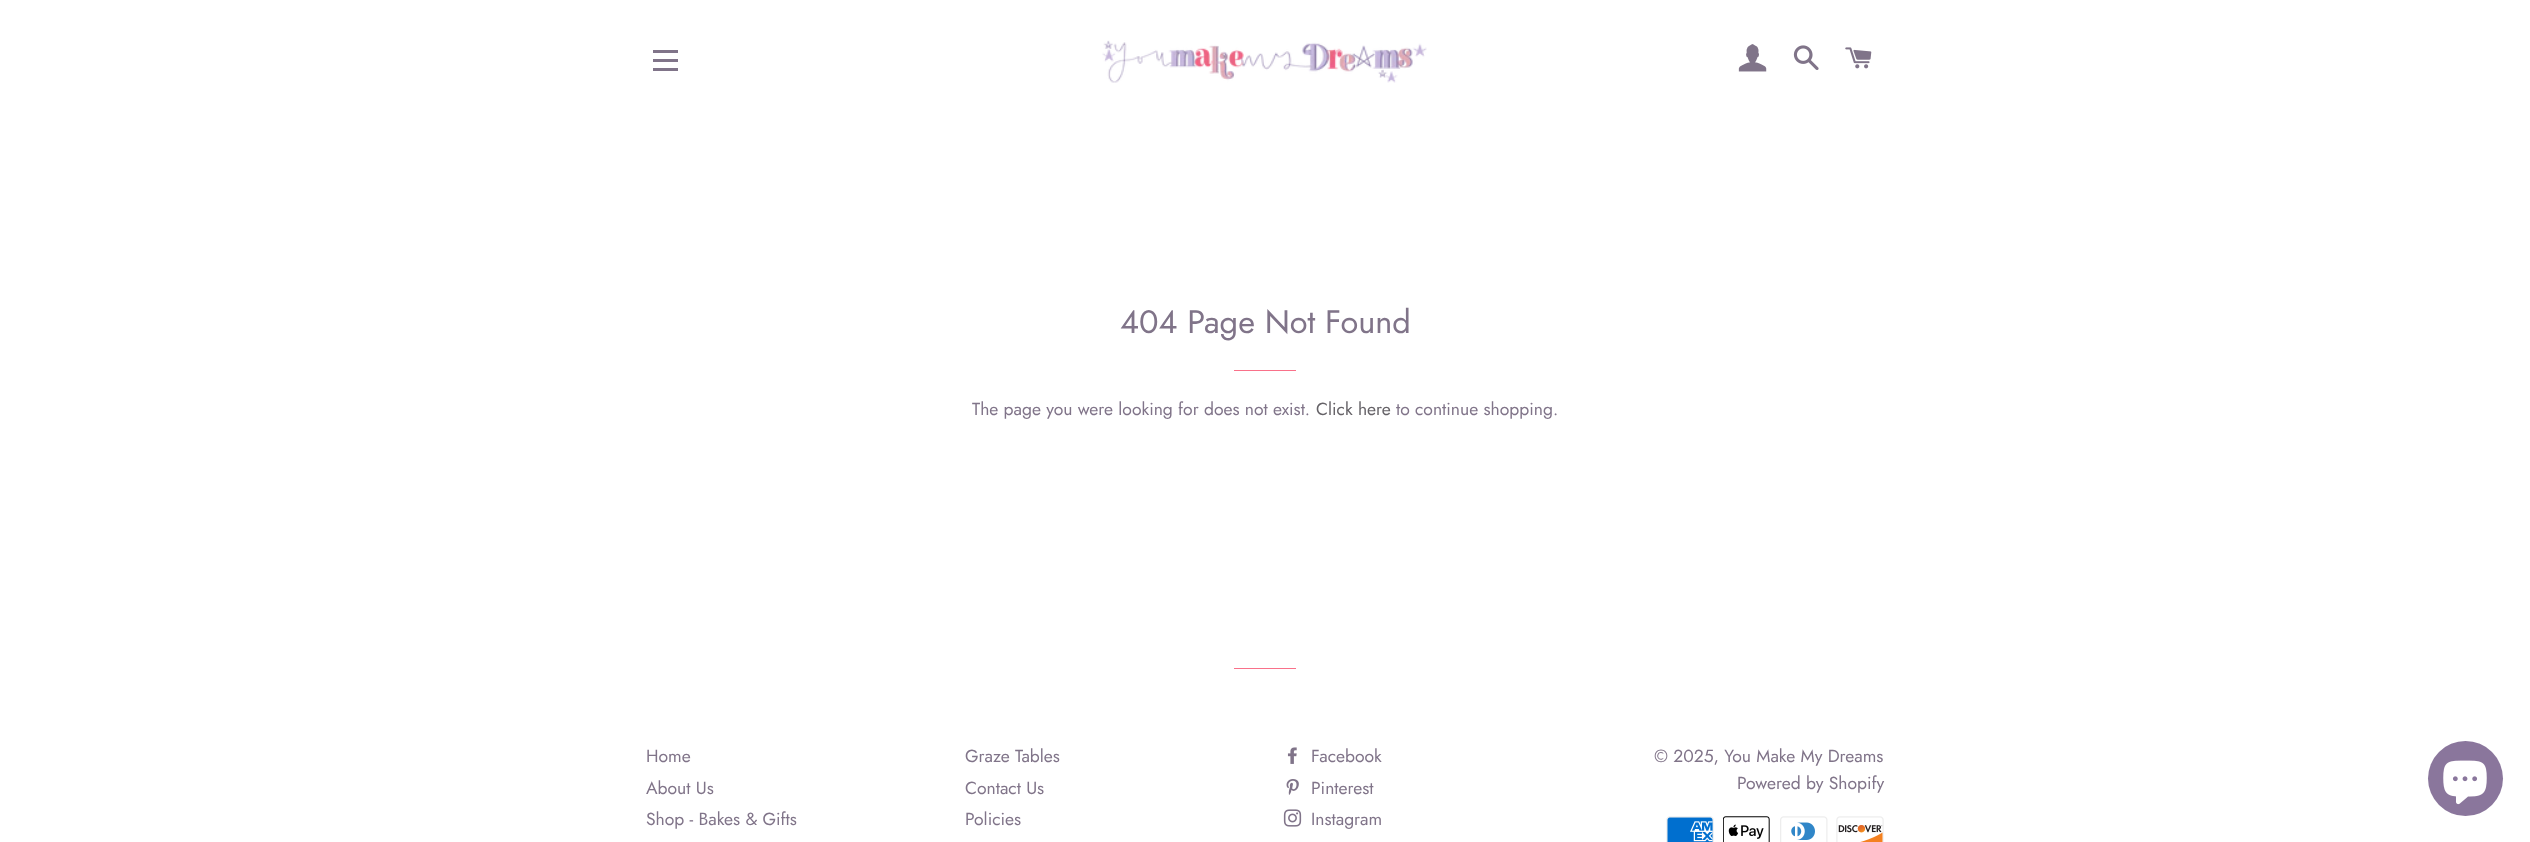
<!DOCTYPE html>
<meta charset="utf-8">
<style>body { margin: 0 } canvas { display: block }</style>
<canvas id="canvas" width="2530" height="842"></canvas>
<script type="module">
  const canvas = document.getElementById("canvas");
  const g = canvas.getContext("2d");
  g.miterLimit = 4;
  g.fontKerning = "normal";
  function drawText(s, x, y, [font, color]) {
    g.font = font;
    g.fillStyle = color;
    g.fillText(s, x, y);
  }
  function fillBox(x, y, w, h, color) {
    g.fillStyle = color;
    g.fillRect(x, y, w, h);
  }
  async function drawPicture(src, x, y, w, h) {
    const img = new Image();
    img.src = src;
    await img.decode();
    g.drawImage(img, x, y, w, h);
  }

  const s1 = ["32.5px Jost", "#807489"];
  const s2 = ["17.5px Jost", "#807489"];
  const s3 = ["17.5px Jost", "#656267"];

  fillBox(0, 0, 2530, 842, "#FFFFFF");
  fillBox(653, 50, 25, 3, "#807489");
  fillBox(653, 59, 25, 3, "#807489");
  fillBox(653, 68, 25, 3, "#807489");
  await drawPicture("pic1.png", 1102, 40, 325, 43);
  await drawPicture("pic2.png", 1738, 44, 29, 28);
  await drawPicture("pic3.png", 1793, 45, 26, 25);
  await drawPicture("pic4.png", 1845, 47, 27, 22);
  drawText("404 Page Not Found", 1120, 333, s1);
  fillBox(1234, 370, 62, 1, "#F9718A");
  drawText("The page you were looking for does not exist.", 972, 415, s2);
  drawText("Click here", 1316, 415, s3);
  drawText("to continue shopping.", 1396, 415, s2);
  fillBox(1234, 668, 62, 1, "#F9718A");
  drawText("Home", 646, 762, s2);
  drawText("About Us", 646, 794, s2);
  drawText("Shop - Bakes & Gifts", 646, 825, s2);
  drawText("Graze Tables", 965, 762, s2);
  drawText("Contact Us", 965, 794, s2);
  drawText("Policies", 965, 825, s2);
  await drawPicture("pic5.png", 1287, 747, 10, 17);
  drawText("Facebook", 1311, 762, s2);
  await drawPicture("pic6.png", 1286, 779, 13, 16);
  drawText("Pinterest", 1311, 794, s2);
  await drawPicture("pic7.png", 1283, 809, 19, 18);
  drawText("Instagram", 1311, 825, s2);
  drawText("© 2025, You Make My Dreams", 1654, 762, s2);
  drawText("Powered by Shopify", 1737, 789, s2);
  await drawPicture("pic8.png", 1666, 816, 48, 26);
  await drawPicture("pic9.png", 1723, 816, 47, 26);
  await drawPicture("pic10.png", 1780, 816, 48, 26);
  await drawPicture("pic11.png", 1836, 816, 48, 26);
  g.fillStyle = "#8A769C";
  g.beginPath();
  g.arc(2465.5, 778.5, 37.5, 0, Math.PI * 2);
  g.fill();
  await drawPicture("pic12.png", 2443, 760, 44, 45);
</script>
